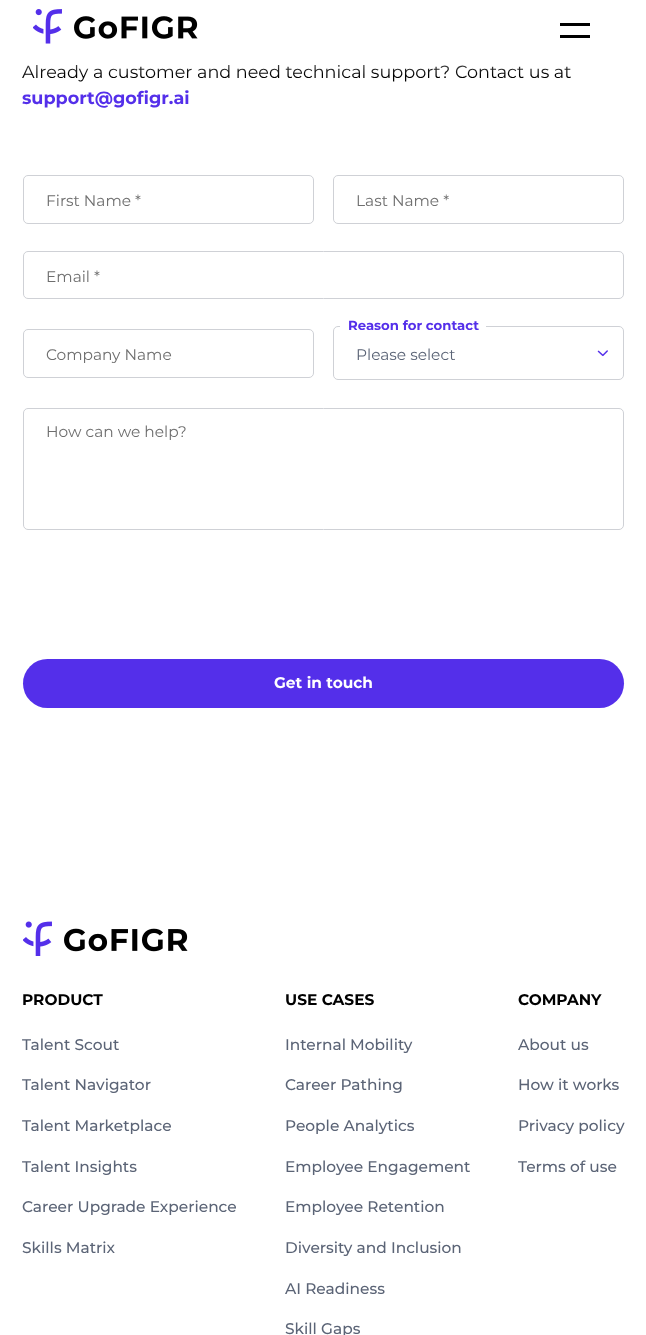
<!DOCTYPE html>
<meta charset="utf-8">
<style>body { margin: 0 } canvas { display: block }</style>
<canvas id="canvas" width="646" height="1335"></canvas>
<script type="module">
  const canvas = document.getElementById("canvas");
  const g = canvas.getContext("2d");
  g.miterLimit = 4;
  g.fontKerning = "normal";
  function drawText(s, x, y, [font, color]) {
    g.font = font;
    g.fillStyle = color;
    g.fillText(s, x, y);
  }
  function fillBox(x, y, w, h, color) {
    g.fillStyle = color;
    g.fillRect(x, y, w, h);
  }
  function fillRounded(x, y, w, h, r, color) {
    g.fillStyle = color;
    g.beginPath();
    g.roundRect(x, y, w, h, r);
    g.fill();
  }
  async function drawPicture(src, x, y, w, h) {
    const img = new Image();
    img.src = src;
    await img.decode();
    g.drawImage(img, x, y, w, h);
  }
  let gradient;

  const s1 = ["17.6px Montserrat", "#000000"];
  const s2 = ["bold 17.6px Montserrat", "#542FEA"];
  const s3 = ["15.4px Montserrat", "#6E6E6E"];
  const s4 = ["bold 13.25px Montserrat", "#542FEA"];
  const s5 = ["15.4px Montserrat", "#5B6476"];
  const s6 = ["bold 15.4px Montserrat", "#FFFFFF"];
  const s7 = ["bold 15.4px Montserrat", "#000000"];
  const s8 = ["500 15.4px Montserrat", "#5B6476"];

  fillBox(0, 0, 646, 1335, "#FFFFFF");
  drawText("Already a customer and need technical support? Contact us at", 22, 78, s1);
  gradient = g.createLinearGradient(323, 0, 323, 75);
  gradient.addColorStop(0.46, "#FFFFFF");
  gradient.addColorStop(1, "rgba(255, 255, 255, 0)");
  g.fillStyle = gradient;
  g.fillRect(24, 64, 546, 10);
  await drawPicture("pic1.png", 33, 9, 165, 35);
  fillBox(560, 23, 30, 3, "#000000");
  fillBox(560, 35, 30, 3, "#000000");
  drawText("support@gofigr.ai", 22, 104, s2);
  g.beginPath();
  g.roundRect(23.5, 175.5, 290, 48, 4.5);
  g.strokeStyle = "#CFD1D6";
  g.stroke();
  drawText("First Name *", 46, 206, s3);
  g.beginPath();
  g.roundRect(333.5, 175.5, 290, 48, 4.5);
  g.stroke();
  drawText("Last Name *", 356, 206, s3);
  g.beginPath();
  g.roundRect(23.5, 251.5, 600, 47, 4.5);
  g.stroke();
  drawText("Email *", 46, 282, s3);
  g.beginPath();
  g.roundRect(23.5, 329.5, 290, 48, 4.5);
  g.stroke();
  drawText("Company Name", 46, 360, s3);
  await drawPicture("pic2.png", 597, 350, 11, 7);
  g.beginPath();
  g.roundRect(333.5, 326.5, 290, 53, 4.5);
  g.stroke();
  fillRounded(340, 316, 146, 19, 4, "#FFFFFF");
  drawText("Reason for contact", 348, 330, s4);
  drawText("Please select", 356, 360, s5);
  g.beginPath();
  g.roundRect(23.5, 408.5, 600, 121, 4.5);
  g.stroke();
  drawText("How can we help?", 46, 437, s3);
  fillRounded(23, 659, 601, 49, 24.5, "#542FEA");
  drawText("Get in touch", 274, 688, s6);
  await drawPicture("pic3.png", 23, 921, 165, 35);
  drawText("PRODUCT", 22, 1005, s7);
  drawText("Talent Scout", 22, 1050, s8);
  drawText("Talent Navigator", 22, 1090, s8);
  drawText("Talent Marketplace", 22, 1131, s8);
  drawText("Talent Insights", 22, 1172, s8);
  drawText("Career Upgrade Experience", 22, 1212, s8);
  drawText("Skills Matrix", 22, 1253, s8);
  drawText("USE CASES", 285, 1005, s7);
  drawText("Internal Mobility", 285, 1050, s8);
  drawText("Career Pathing", 285, 1090, s8);
  drawText("People Analytics", 285, 1131, s8);
  drawText("Employee Engagement", 285, 1172, s8);
  drawText("Employee Retention", 285, 1212, s8);
  drawText("Diversity and Inclusion", 285, 1253, s8);
  drawText("AI Readiness", 285, 1294, s8);
  drawText("Skill Gaps", 285, 1334, s8);
  drawText("COMPANY", 518, 1005, s7);
  drawText("About us", 518, 1050, s8);
  drawText("How it works", 518, 1090, s8);
  drawText("Privacy policy", 518, 1131, s8);
  drawText("Terms of use", 518, 1172, s8);
</script>
